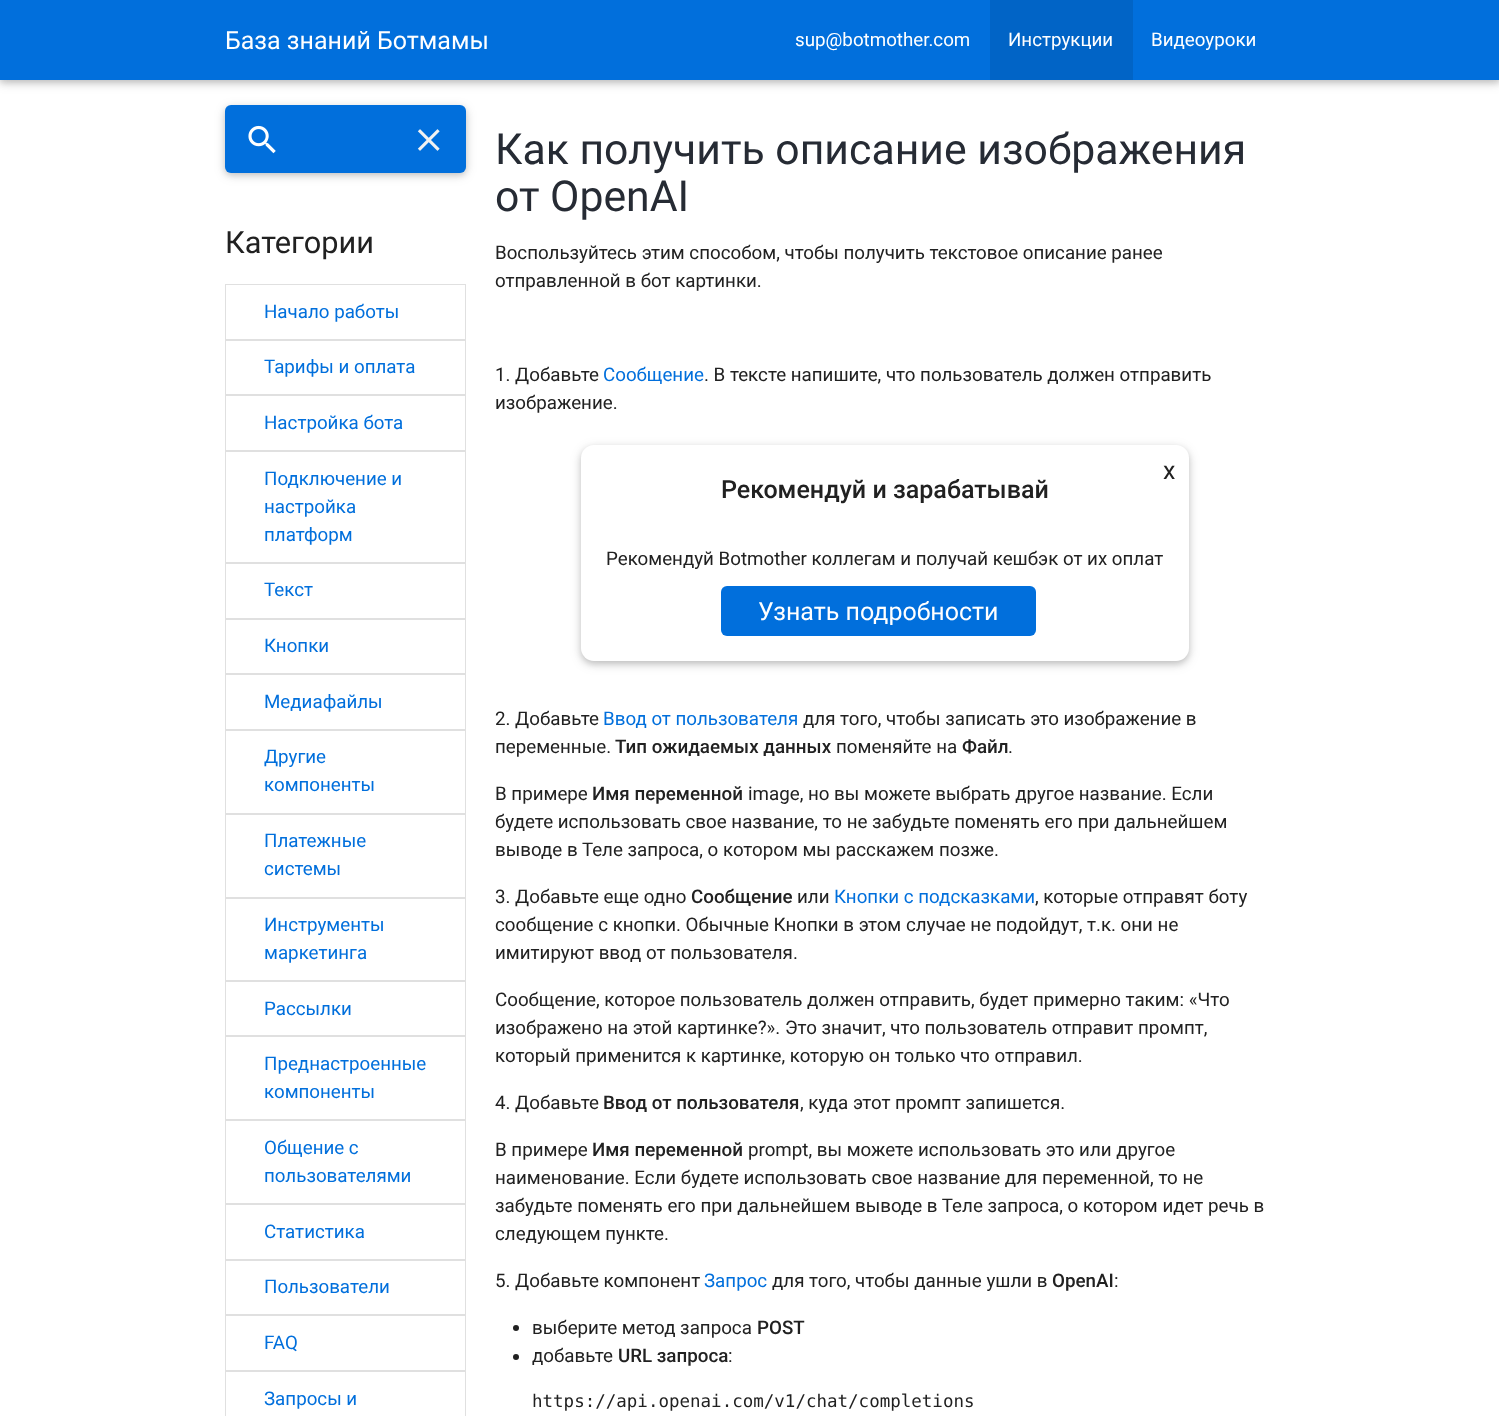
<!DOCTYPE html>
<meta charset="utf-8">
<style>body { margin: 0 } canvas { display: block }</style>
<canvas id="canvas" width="1499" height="1416"></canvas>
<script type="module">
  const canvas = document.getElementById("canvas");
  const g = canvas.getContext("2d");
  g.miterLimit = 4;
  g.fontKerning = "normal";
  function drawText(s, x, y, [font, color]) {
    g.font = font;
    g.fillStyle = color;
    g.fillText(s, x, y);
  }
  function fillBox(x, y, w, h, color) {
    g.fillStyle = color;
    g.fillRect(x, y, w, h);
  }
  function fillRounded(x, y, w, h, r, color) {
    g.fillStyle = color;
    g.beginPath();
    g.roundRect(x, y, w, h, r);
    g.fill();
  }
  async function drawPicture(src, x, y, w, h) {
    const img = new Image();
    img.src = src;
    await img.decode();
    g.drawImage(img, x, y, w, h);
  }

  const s1 = ["25px Roboto", "#FFFFFF"];
  const s2 = ["18.75px Roboto", "#FFFFFF"];
  const s3 = ["30.75px Roboto", "#212121"];
  const s4 = ["18.75px Roboto", "#016FDC"];
  const s5 = ["42.75px Roboto", "#262B34"];
  const s6 = ["18.75px Roboto", "#212121"];
  const s7 = ["25px Roboto", "#212121"];
  const s8 = ["500 25px Roboto", "#212121"];
  const s9 = ["500 18.75px Roboto", "#212121"];
  const s10 = ["17.5px DejaVu Sans Mono", "#212121"];

  fillBox(0, 0, 1499, 1416, "#FFFFFF");
  g.fillStyle = "rgba(0, 0, 0, 0.12)";
  g.filter = "blur(6px)";
  g.beginPath();
  g.rect(0, 3, 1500, 80);
  g.fill();
  g.filter = "none";
  g.fillStyle = "rgba(0, 0, 0, 0.16)";
  g.filter = "blur(3px)";
  g.beginPath();
  g.rect(0, 3, 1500, 80);
  g.fill();
  g.filter = "none";
  fillBox(0, 0, 1499, 80, "#016FDC");
  drawText("База знаний Ботмамы", 225, 49, s1);
  drawText("sup@botmother.com", 795, 46, s2);
  fillBox(990, 0, 143, 80, "#0164C6");
  drawText("Инструкции", 1008, 46, s2);
  drawText("Видеоуроки", 1151, 46, s2);
  g.fillStyle = "rgba(0, 0, 0, 0.12)";
  g.filter = "blur(6px)";
  g.beginPath();
  g.roundRect(225, 108, 241, 67, 6);
  g.fill();
  g.filter = "none";
  g.fillStyle = "rgba(0, 0, 0, 0.16)";
  g.filter = "blur(3px)";
  g.beginPath();
  g.roundRect(225, 108, 241, 67, 6);
  g.fill();
  g.filter = "none";
  fillRounded(225, 105, 241, 68, 6, "#016FDC");
  await drawPicture("pic1.png", 248, 125, 28, 29);
  await drawPicture("pic2.png", 417, 129, 23, 22);
  drawText("Категории", 225, 253, s3);
  g.strokeStyle = "#E0E0E0";
  g.strokeRect(225.5, 284.5, 240, 55);
  drawText("Начало работы", 264, 318, s4);
  g.strokeRect(225.5, 340.5, 240, 54);
  drawText("Тарифы и оплата", 264, 373, s4);
  g.strokeRect(225.5, 395.5, 240, 55);
  drawText("Настройка бота", 264, 429, s4);
  g.strokeRect(225.5, 451.5, 240, 111);
  drawText("Подключение и", 264, 485, s4);
  drawText("настройка", 264, 513, s4);
  drawText("платформ", 264, 541, s4);
  g.strokeRect(225.5, 563.5, 240, 55);
  drawText("Текст", 264, 596, s4);
  g.strokeRect(225.5, 619.5, 240, 54);
  drawText("Кнопки", 264, 652, s4);
  g.strokeRect(225.5, 674.5, 240, 55);
  drawText("Медиафайлы", 264, 708, s4);
  g.strokeRect(225.5, 730.5, 240, 83);
  drawText("Другие", 264, 763, s4);
  drawText("компоненты", 264, 791, s4);
  g.strokeRect(225.5, 814.5, 240, 83);
  drawText("Платежные", 264, 847, s4);
  drawText("системы", 264, 875, s4);
  g.strokeRect(225.5, 898.5, 240, 82);
  drawText("Инструменты", 264, 931, s4);
  drawText("маркетинга", 264, 959, s4);
  g.strokeRect(225.5, 981.5, 240, 54);
  drawText("Рассылки", 264, 1015, s4);
  g.strokeRect(225.5, 1036.5, 240, 83);
  drawText("Преднастроенные", 264, 1070, s4);
  drawText("компоненты", 264, 1098, s4);
  g.strokeRect(225.5, 1120.5, 240, 83);
  drawText("Общение с", 264, 1154, s4);
  drawText("пользователями", 264, 1182, s4);
  g.strokeRect(225.5, 1204.5, 240, 55);
  drawText("Статистика", 264, 1238, s4);
  g.strokeRect(225.5, 1260.5, 240, 54);
  drawText("Пользователи", 264, 1293, s4);
  g.strokeRect(225.5, 1315.5, 240, 55);
  drawText("FAQ", 264, 1349, s4);
  g.strokeRect(225.5, 1371.5, 240, 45);
  drawText("Запросы и", 264, 1405, s4);
  drawText("Как получить описание изображения", 495, 164, s5);
  drawText("от OpenAI", 495, 211, s5);
  drawText("Воспользуйтесь этим способом, чтобы получить текстовое описание ранее", 495, 259, s6);
  drawText("отправленной в бот картинки.", 495, 287, s6);
  drawText("1. Добавьте", 495, 381, s6);
  drawText("Сообщение", 603, 381, s4);
  drawText(". В тексте напишите, что пользователь должен отправить", 704, 381, s6);
  drawText("изображение.", 495, 409, s6);
  g.fillStyle = "rgba(0, 0, 0, 0.12)";
  g.filter = "blur(6px)";
  g.beginPath();
  g.roundRect(581, 448, 608, 216, 13);
  g.fill();
  g.filter = "none";
  g.fillStyle = "rgba(0, 0, 0, 0.16)";
  g.filter = "blur(3px)";
  g.beginPath();
  g.roundRect(581, 448, 608, 216, 13);
  g.fill();
  g.filter = "none";
  fillRounded(581, 445, 608, 216, 13, "#FFFFFF");
  drawText("x", 1163, 479, s7);
  drawText("Рекомендуй и зарабатывай", 721, 498, s8);
  drawText("Рекомендуй Botmother коллегам и получай кешбэк от их оплат", 606, 565, s6);
  fillRounded(721, 586, 315, 50, 6, "#016FDC");
  drawText("Узнать подробности", 758, 620, s1);
  drawText("2. Добавьте", 495, 725, s6);
  drawText("Ввод от пользователя", 603, 725, s4);
  drawText("для того, чтобы записать это изображение в", 803, 725, s6);
  drawText("переменные.", 495, 753, s6);
  drawText("Тип ожидаемых данных", 615, 753, s9);
  drawText("поменяйте на", 836, 753, s6);
  drawText("Файл", 962, 753, s9);
  drawText(".", 1008, 753, s6);
  drawText("В примере", 495, 800, s6);
  drawText("Имя переменной", 592, 800, s9);
  drawText("image, но вы можете выбрать другое название. Если", 748, 800, s6);
  drawText("будете использовать свое название, то не забудьте поменять его при дальнейшем", 495, 828, s6);
  drawText("выводе в Теле запроса, о котором мы расскажем позже.", 495, 856, s6);
  drawText("3. Добавьте еще одно", 495, 903, s6);
  drawText("Сообщение", 691, 903, s9);
  drawText("или", 797, 903, s6);
  drawText("Кнопки с подсказками", 834, 903, s4);
  drawText(", которые отправят боту", 1035, 903, s6);
  drawText("сообщение с кнопки. Обычные Кнопки в этом случае не подойдут, т.к. они не", 495, 931, s6);
  drawText("имитируют ввод от пользователя.", 495, 959, s6);
  drawText("Сообщение, которое пользователь должен отправить, будет примерно таким: «Что", 495, 1006, s6);
  drawText("изображено на этой картинке?». Это значит, что пользователь отправит промпт,", 495, 1034, s6);
  drawText("который применится к картинке, которую он только что отправил.", 495, 1062, s6);
  drawText("4. Добавьте", 495, 1109, s6);
  drawText("Ввод от пользователя", 603, 1109, s9);
  drawText(", куда этот промпт запишется.", 800, 1109, s6);
  drawText("В примере", 495, 1156, s6);
  drawText("Имя переменной", 592, 1156, s9);
  drawText("prompt, вы можете использовать это или другое", 748, 1156, s6);
  drawText("наименование. Если будете использовать свое название для переменной, то не", 495, 1184, s6);
  drawText("забудьте поменять его при дальнейшем выводе в Теле запроса, о котором идет речь в", 495, 1212, s6);
  drawText("следующем пункте.", 495, 1240, s6);
  drawText("5. Добавьте компонент", 495, 1287, s6);
  drawText("Запрос", 704, 1287, s4);
  drawText("для того, чтобы данные ушли в", 772, 1287, s6);
  drawText("OpenAI", 1052, 1287, s9);
  drawText(":", 1114, 1287, s6);
  g.beginPath();
  g.arc(516, 1328, 3, 0, Math.PI * 2);
  g.fill();
  drawText("выберите метод запроса", 532, 1334, s6);
  drawText("POST", 757, 1334, s9);
  g.beginPath();
  g.arc(516, 1357, 3, 0, Math.PI * 2);
  g.fill();
  drawText("добавьте", 532, 1362, s6);
  drawText("URL запроса", 618, 1362, s9);
  drawText(":", 728, 1362, s6);
  drawText("https://api.openai.com/v1/chat/completions", 532, 1407, s10);
</script>
